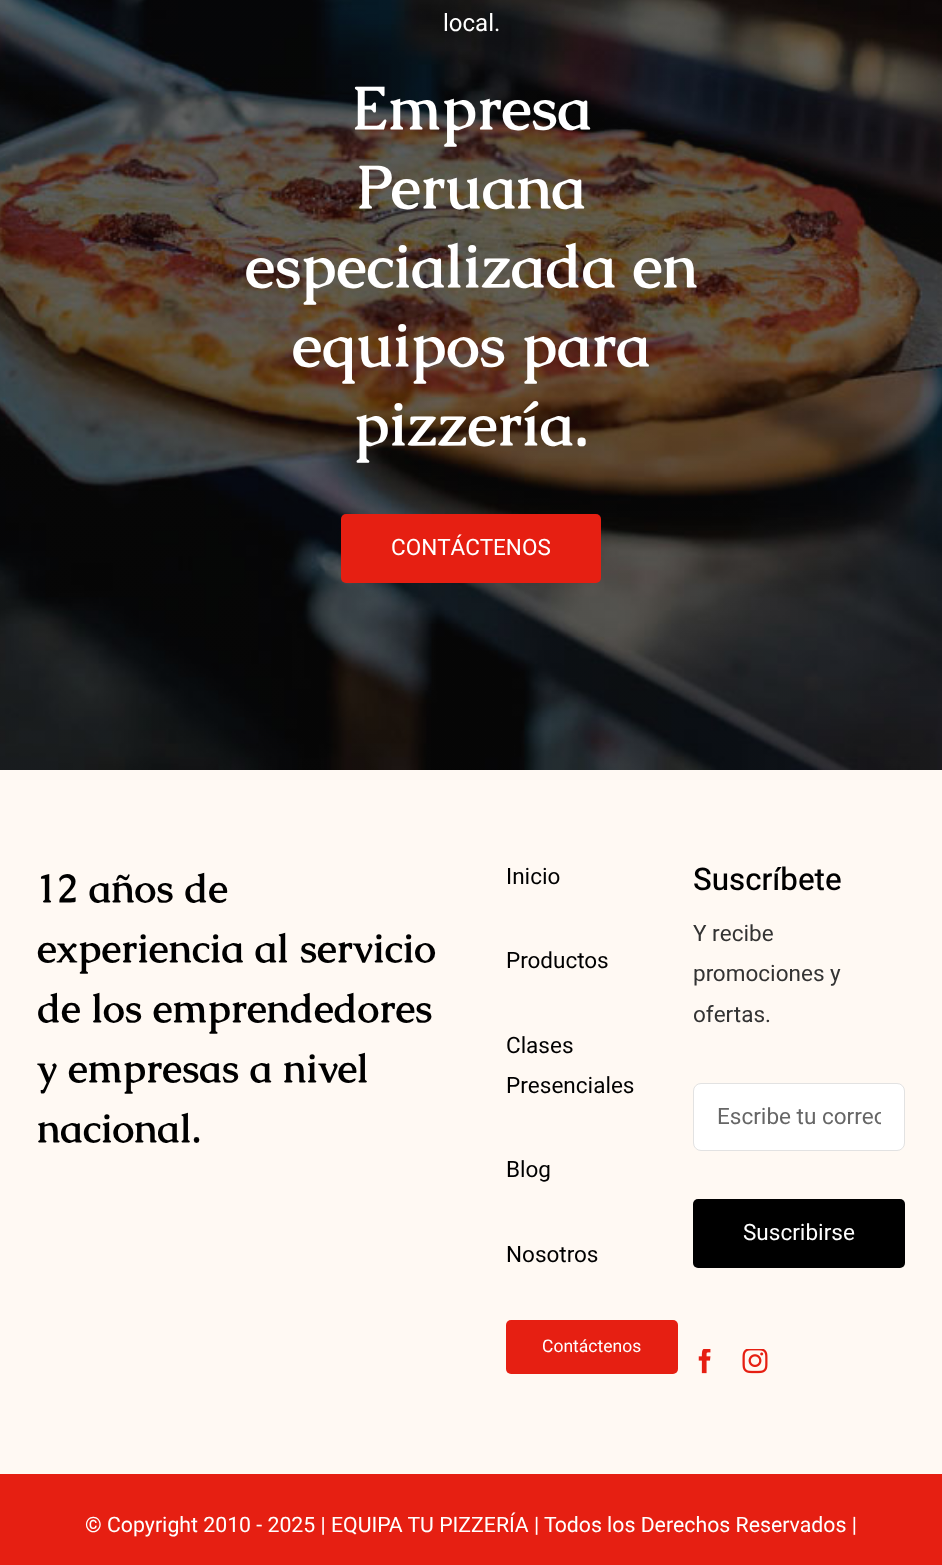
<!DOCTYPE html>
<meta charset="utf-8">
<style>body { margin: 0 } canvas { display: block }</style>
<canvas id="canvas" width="942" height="1565"></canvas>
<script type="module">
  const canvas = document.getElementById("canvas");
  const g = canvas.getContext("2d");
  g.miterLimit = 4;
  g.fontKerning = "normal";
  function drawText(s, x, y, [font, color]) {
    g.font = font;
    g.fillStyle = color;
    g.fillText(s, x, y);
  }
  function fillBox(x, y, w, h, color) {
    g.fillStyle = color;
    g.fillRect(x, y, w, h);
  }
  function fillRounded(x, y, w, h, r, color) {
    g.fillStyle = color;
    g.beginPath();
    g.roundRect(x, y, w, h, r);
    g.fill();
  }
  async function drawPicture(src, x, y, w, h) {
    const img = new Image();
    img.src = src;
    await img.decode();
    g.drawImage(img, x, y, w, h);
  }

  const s1 = ["24px Heebo", "#FFFFFF"];
  const s2 = ["bold 60.75px Caudex", "#FFFFFF"];
  const s3 = ["22.5px Heebo", "#FFFFFF"];
  const s4 = ["bold 40px Caudex", "#000000"];
  const s5 = ["22.5px Heebo", "#000000"];
  const s6 = ["17.5px Heebo", "#FFFFFF"];
  const s7 = ["500 31.25px Heebo", "#000000"];
  const s8 = ["22.5px Heebo", "#333333"];
  const s9 = ["22.5px Heebo", "#666666"];
  const s10 = ["21.25px Heebo", "#FFFFFF"];

  fillBox(0, 0, 942, 1565, "#FFFFFF");
  await drawPicture("pic1.png", 0, 0, 942, 770);
  drawText("local.", 443, 31, s1);
  drawText("Empresa", 351, 129, s2);
  drawText("Peruana", 356, 208, s2);
  drawText("especializada en", 245, 287, s2);
  drawText("equipos para", 292, 366, s2);
  drawText("pizzería.", 354, 445, s2);
  fillRounded(341, 514, 260, 69, 5, "#E61F12");
  drawText("CONTÁCTENOS", 391, 555, s3);
  fillBox(0, 770, 942, 704, "#FFF9F3");
  drawText("12 años de", 37, 902, s4);
  drawText("experiencia al servicio", 37, 962, s4);
  drawText("de los emprendedores", 37, 1022, s4);
  drawText("y empresas a nivel", 37, 1082, s4);
  drawText("nacional.", 37, 1142, s4);
  drawText("Inicio", 506, 884, s5);
  drawText("Productos", 506, 968, s5);
  drawText("Clases", 506, 1053, s5);
  drawText("Presenciales", 506, 1093, s5);
  drawText("Blog", 506, 1177, s5);
  drawText("Nosotros", 506, 1262, s5);
  fillRounded(506, 1320, 172, 54, 5, "#E61F12");
  drawText("Contáctenos", 542, 1352, s6);
  drawText("Suscríbete", 693, 890, s7);
  drawText("Y recibe", 693, 941, s8);
  drawText("promociones y", 693, 981, s8);
  drawText("ofertas.", 693, 1022, s8);
  g.fillStyle = "#FFFFFF";
  g.beginPath();
  g.roundRect(693.5, 1083.5, 211, 67, 7.5);
  g.fill();
  g.strokeStyle = "#E2E2E2";
  g.stroke();
  g.save();
  g.beginPath();
  g.rect(716, 1100, 165, 34);
  g.clip();
  drawText("Escribe tu correo", 717, 1124, s9);
  g.restore();
  fillRounded(693, 1199, 212, 69, 5, "#000000");
  drawText("Suscribirse", 743, 1240, s3);
  await drawPicture("pic2.png", 698, 1349, 13, 25);
  await drawPicture("pic3.png", 742, 1349, 26, 25);
  fillBox(0, 1474, 942, 91, "#E61F12");
  drawText("© Copyright 2010 - 2025 | EQUIPA TU PIZZERÍA |", 85, 1532, s10);
  drawText("Todos los Derechos Reservados |", 544, 1532, s10);
</script>
